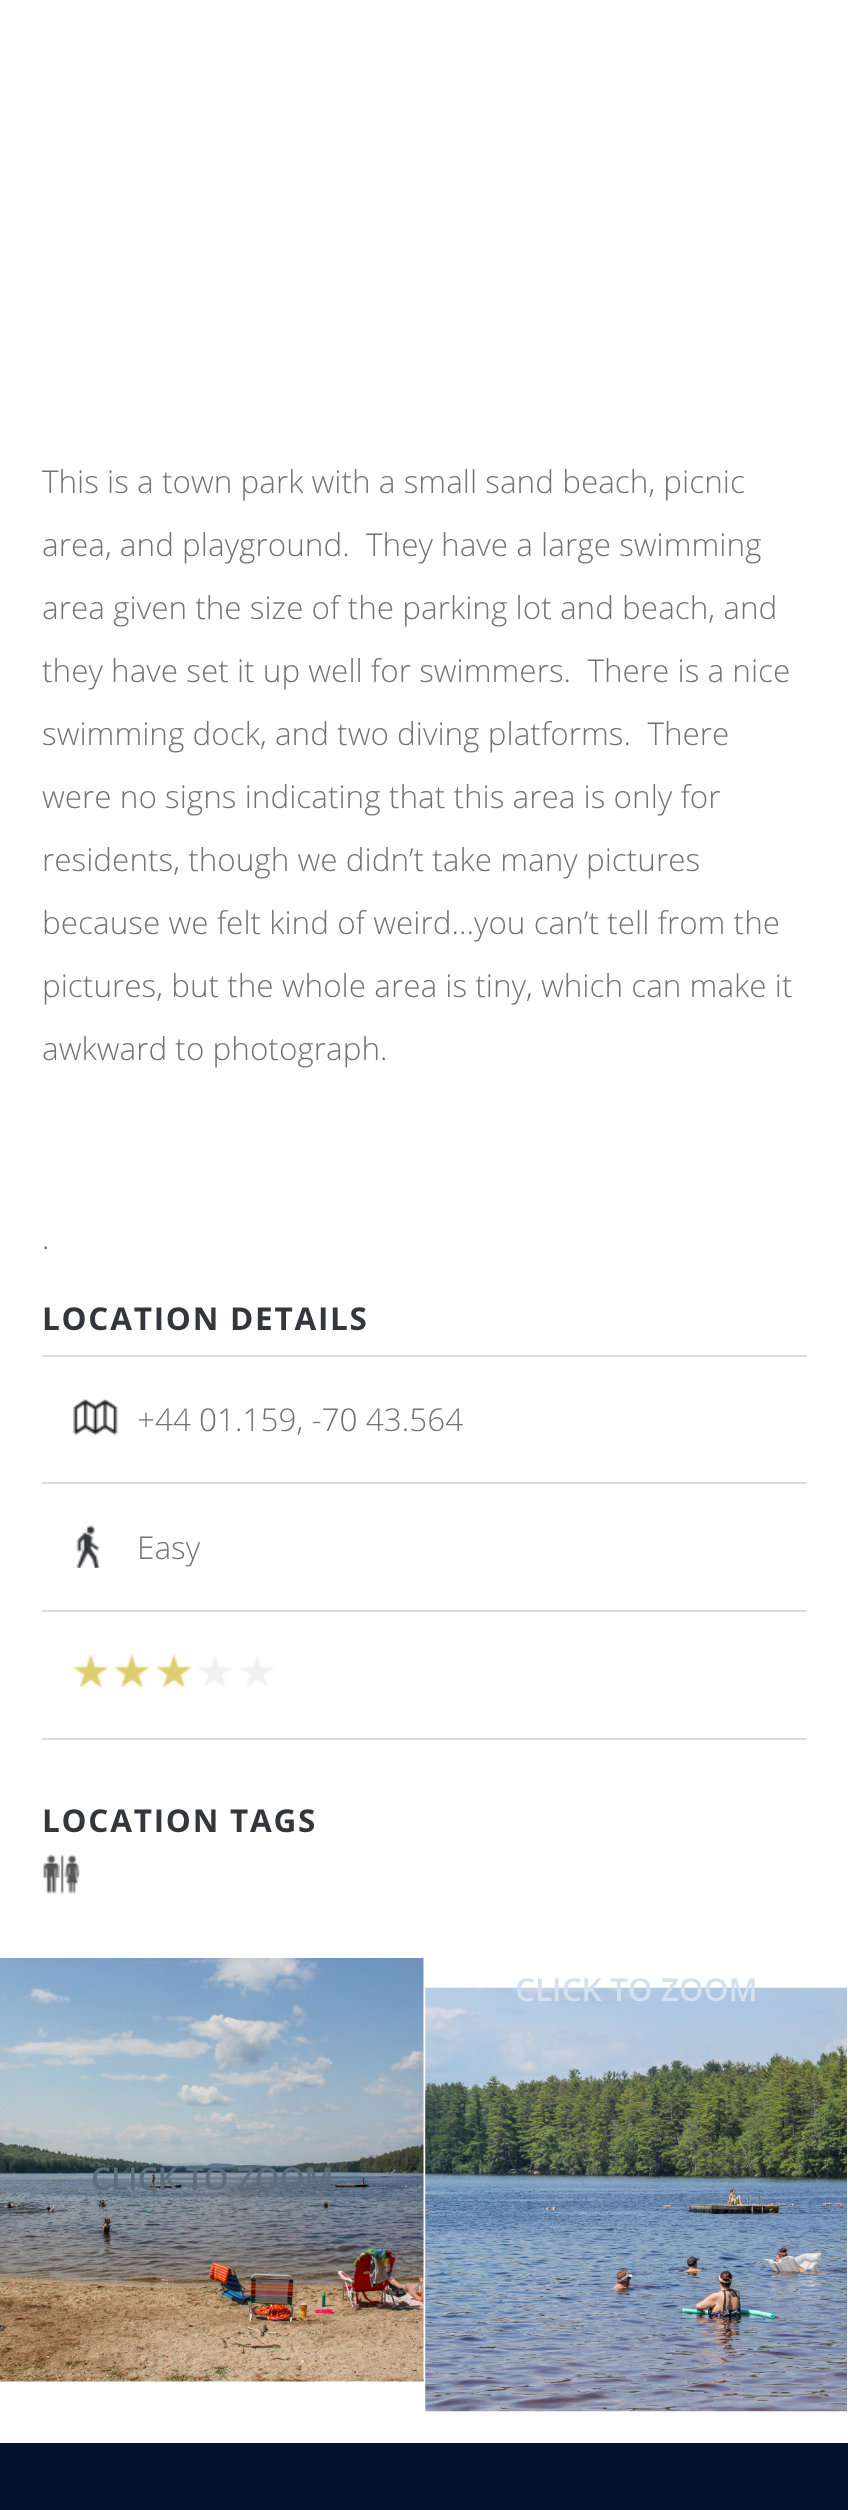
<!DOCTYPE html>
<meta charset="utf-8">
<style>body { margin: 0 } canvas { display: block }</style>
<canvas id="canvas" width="848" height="2510"></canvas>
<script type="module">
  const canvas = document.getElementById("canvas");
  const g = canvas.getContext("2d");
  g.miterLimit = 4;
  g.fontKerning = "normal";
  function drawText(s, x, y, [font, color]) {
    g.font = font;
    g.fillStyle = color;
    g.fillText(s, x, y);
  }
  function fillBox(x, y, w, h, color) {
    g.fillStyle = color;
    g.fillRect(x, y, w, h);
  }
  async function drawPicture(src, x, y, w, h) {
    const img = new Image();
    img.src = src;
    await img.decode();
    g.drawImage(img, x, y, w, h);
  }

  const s1 = ["300 31.5px Open Sans", "#717379"];
  const s2 = ["bold 31.5px Open Sans", "#33363B"];
  const s3 = ["600 31.5px Open Sans", "#D3E0EE"];
  const s4 = ["600 31.5px Open Sans", "#5E6D7B"];

  fillBox(0, 0, 848, 2510, "#FFFFFF");
  drawText("This is a town park with a small sand beach, picnic", 42, 493, s1);
  drawText("area, and playground.  They have a large swimming", 42, 556, s1);
  drawText("area given the size of the parking lot and beach, and", 42, 619, s1);
  drawText("they have set it up well for swimmers.  There is a nice", 42, 682, s1);
  drawText("swimming dock, and two diving platforms.  There", 42, 745, s1);
  drawText("were no signs indicating that this area is only for", 42, 808, s1);
  drawText("residents, though we didn’t take many pictures", 42, 871, s1);
  drawText("because we felt kind of weird…you can’t tell from the", 42, 934, s1);
  drawText("pictures, but the whole area is tiny, which can make it", 42, 997, s1);
  drawText("awkward to photograph.", 42, 1060, s1);
  drawText(".", 42, 1249, s1);
  g.letterSpacing = "1.75px";
  drawText("LOCATION DETAILS", 42, 1330, s2);
  fillBox(42, 1355, 765, 2, "#DDDDDD");
  await drawPicture("pic1.png", 73, 1399, 45, 37);
  fillBox(42, 1482, 765, 2, "#DDDDDD");
  g.letterSpacing = "0px";
  drawText("+44 01.159, -70 43.564", 137, 1431, s1);
  await drawPicture("pic2.png", 76, 1525, 24, 43);
  fillBox(42, 1610, 765, 2, "#DDDDDD");
  drawText("Easy", 137, 1559, s1);
  fillBox(42, 1738, 765, 2, "#DDDDDD");
  await drawPicture("pic3.png", 73, 1655, 201, 32);
  g.letterSpacing = "1.75px";
  drawText("LOCATION TAGS", 42, 1832, s2);
  await drawPicture("pic4.png", 43, 1854, 37, 40);
  await drawPicture("pic6.png", 425, 1987, 422, 425);
  g.letterSpacing = "0px";
  drawText("CLICK TO ZOOM", 515, 2001, s3);
  await drawPicture("pic5.png", 0, 1958, 424, 424);
  drawText("CLICK TO ZOOM", 91, 2190, s4);
  fillBox(0, 2443, 848, 67, "#04112C");
</script>
